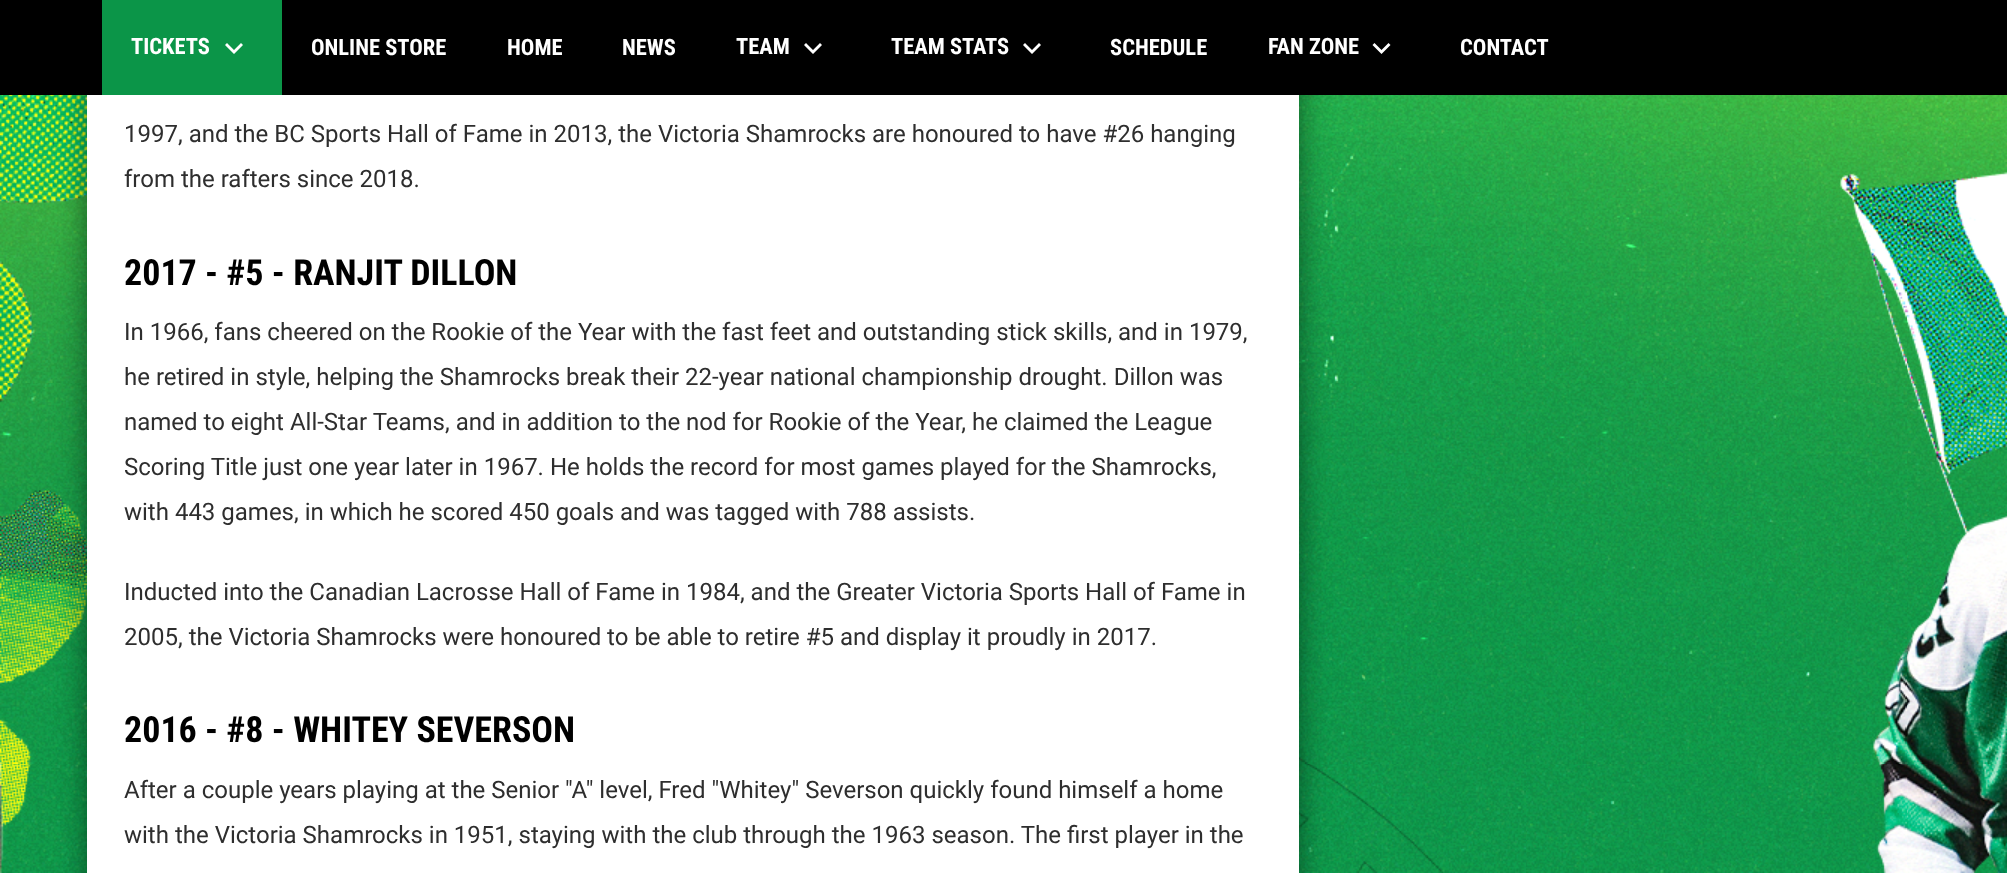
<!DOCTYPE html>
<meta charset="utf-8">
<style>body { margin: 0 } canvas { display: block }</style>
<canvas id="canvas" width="2007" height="873"></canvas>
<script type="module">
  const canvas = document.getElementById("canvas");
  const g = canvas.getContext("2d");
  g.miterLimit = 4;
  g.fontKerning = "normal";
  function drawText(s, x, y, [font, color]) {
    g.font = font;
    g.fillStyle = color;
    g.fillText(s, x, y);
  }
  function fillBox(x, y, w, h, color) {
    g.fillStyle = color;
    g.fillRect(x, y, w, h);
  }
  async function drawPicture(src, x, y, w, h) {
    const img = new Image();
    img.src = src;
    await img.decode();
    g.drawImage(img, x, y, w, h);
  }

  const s1 = ["bold 22.5px Roboto Condensed", "#FFFFFF"];
  const s2 = ["24px Roboto", "#2E2E2E"];
  const s3 = ["bold 36px Roboto Condensed", "#000000"];

  fillBox(0, 0, 2007, 873, "#FFFFFF");
  await drawPicture("pic1.png", 0, 95, 2007, 778);
  g.fillStyle = "rgba(0, 0, 0, 0.5)";
  g.filter = "blur(15px)";
  g.beginPath();
  g.rect(87, -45, 1212, 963);
  g.fill();
  g.filter = "none";
  fillBox(0, 0, 2007, 95, "#000000");
  fillBox(102, 0, 180, 95, "#0B9548");
  drawText("TICKETS", 131, 54, s1);
  g.beginPath();
  g.moveTo(227, 43);
  g.lineTo(234, 50);
  g.lineTo(241, 43);
  g.lineTo(243, 45);
  g.lineTo(234, 54);
  g.lineTo(225, 45);
  g.closePath();
  g.fill();
  drawText("ONLINE STORE", 311, 55, s1);
  drawText("HOME", 507, 55, s1);
  drawText("NEWS", 622, 55, s1);
  drawText("TEAM", 736, 54, s1);
  g.beginPath();
  g.moveTo(806, 43);
  g.lineTo(813, 50);
  g.lineTo(820, 43);
  g.lineTo(822, 45);
  g.lineTo(813, 54);
  g.lineTo(804, 45);
  g.closePath();
  g.fill();
  drawText("TEAM STATS", 891, 54, s1);
  g.beginPath();
  g.moveTo(1025, 43);
  g.lineTo(1032, 50);
  g.lineTo(1039, 43);
  g.lineTo(1041, 45);
  g.lineTo(1032, 54);
  g.lineTo(1023, 45);
  g.closePath();
  g.fill();
  drawText("SCHEDULE", 1110, 55, s1);
  drawText("FAN ZONE", 1268, 54, s1);
  g.beginPath();
  g.moveTo(1374.5, 43);
  g.lineTo(1381.5, 50);
  g.lineTo(1388.5, 43);
  g.lineTo(1390.5, 45);
  g.lineTo(1381.5, 54);
  g.lineTo(1372.5, 45);
  g.closePath();
  g.fill();
  drawText("CONTACT", 1460, 55, s1);
  fillBox(87, 95, 1212, 778, "#FFFFFF");
  drawText("1997, and the BC Sports Hall of Fame in 2013, the Victoria Shamrocks are honoured to have #26 hanging", 124, 142, s2);
  drawText("from the rafters since 2018.", 124, 187, s2);
  drawText("2017 - #5 - RANJIT DILLON", 124, 285, s3);
  drawText("In 1966, fans cheered on the Rookie of the Year with the fast feet and outstanding stick skills, and in 1979,", 124, 340, s2);
  drawText("he retired in style, helping the Shamrocks break their 22-year national championship drought. Dillon was", 124, 385, s2);
  drawText("named to eight All-Star Teams, and in addition to the nod for Rookie of the Year, he claimed the League", 124, 430, s2);
  drawText("Scoring Title just one year later in 1967. He holds the record for most games played for the Shamrocks,", 124, 475, s2);
  drawText("with 443 games, in which he scored 450 goals and was tagged with 788 assists.", 124, 520, s2);
  drawText("Inducted into the Canadian Lacrosse Hall of Fame in 1984, and the Greater Victoria Sports Hall of Fame in", 124, 600, s2);
  drawText("2005, the Victoria Shamrocks were honoured to be able to retire #5 and display it proudly in 2017.", 124, 645, s2);
  drawText("2016 - #8 - WHITEY SEVERSON", 124, 742, s3);
  drawText("After a couple years playing at the Senior \"A\" level, Fred \"Whitey\" Severson quickly found himself a home", 124, 798, s2);
  drawText("with the Victoria Shamrocks in 1951, staying with the club through the 1963 season. The first player in the", 124, 843, s2);
</script>
